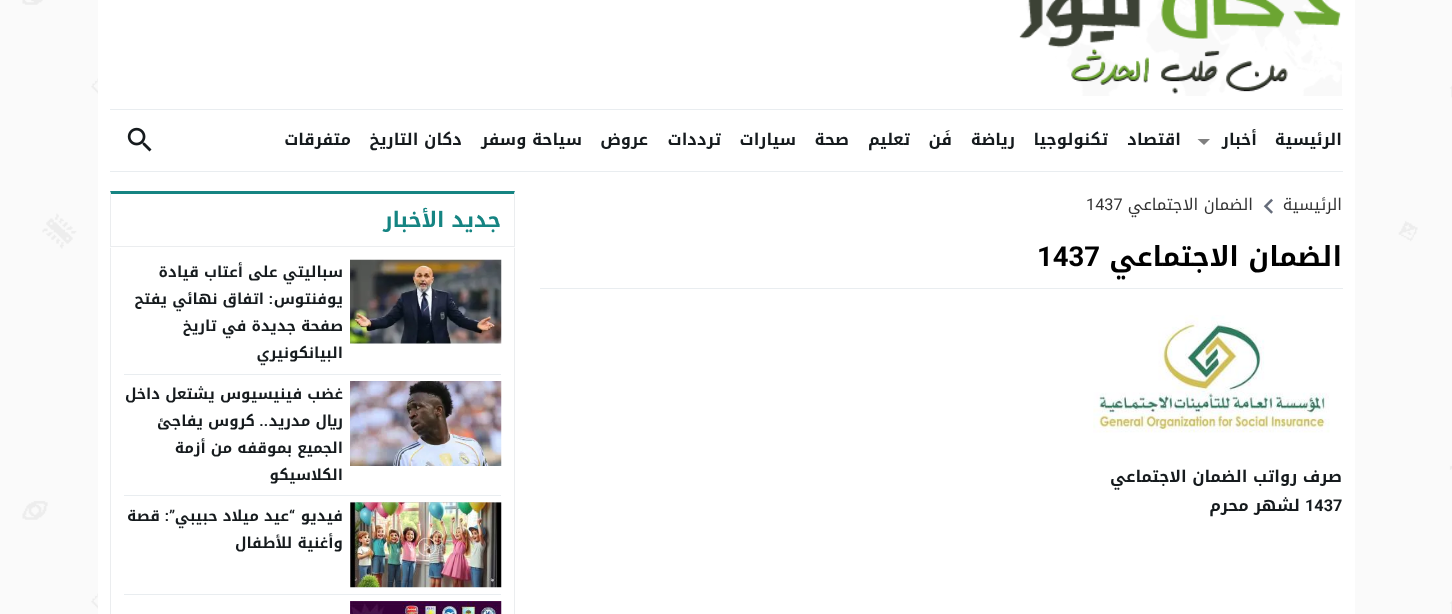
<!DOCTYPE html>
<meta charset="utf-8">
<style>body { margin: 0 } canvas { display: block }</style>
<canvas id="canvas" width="1452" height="614"></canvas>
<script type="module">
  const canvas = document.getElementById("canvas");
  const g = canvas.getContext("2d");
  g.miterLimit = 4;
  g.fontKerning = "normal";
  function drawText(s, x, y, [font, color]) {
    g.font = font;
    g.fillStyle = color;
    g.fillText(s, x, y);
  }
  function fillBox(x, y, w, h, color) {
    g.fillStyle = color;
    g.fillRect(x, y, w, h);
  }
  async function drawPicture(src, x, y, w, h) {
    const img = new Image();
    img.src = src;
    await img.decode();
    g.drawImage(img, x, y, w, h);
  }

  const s1 = ["bold 16.25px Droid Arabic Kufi", "#161B1E"];
  const s2 = ["16.25px Droid Arabic Kufi", "#333333"];
  const s3 = ["16.25px Roboto", "#333333"];
  const s4 = ["bold 27.5px Droid Arabic Kufi", "#000000"];
  const s5 = ["bold 27.5px Roboto", "#000000"];
  const s6 = ["bold 16.25px Roboto", "#161B1E"];
  const s7 = ["bold 21.25px Droid Arabic Kufi", "#158482"];
  const s8 = ["bold 15px Droid Arabic Kufi", "#161B1E"];
  const s9 = ["bold 15px Roboto", "#161B1E"];

  fillBox(0, 0, 1452, 614, "#FFFFFF");
  await drawPicture("pic1.png", 0, 0, 1452, 614);
  fillBox(98, 0, 1257, 614, "#FFFFFF");
  await drawPicture("pic2.png", 1019, 0, 323, 96);
  fillBox(110, 109, 1233, 1, "#E9EDF0");
  fillBox(110, 171, 1233, 1, "#E9EDF0");
  g.direction = "rtl";
  drawText("الرئيسية", 1342, 145, s1);
  drawText("أخبار", 1257, 145, s1);
  g.fillStyle = "#808080";
  g.beginPath();
  g.moveTo(1197.5, 139);
  g.lineTo(1210, 139);
  g.lineTo(1204, 145);
  g.closePath();
  g.fill();
  drawText("اقتصاد", 1181, 145, s1);
  drawText("تكنولوجيا", 1108, 145, s1);
  drawText("رياضة", 1015, 145, s1);
  drawText("فَن", 952, 145, s1);
  drawText("تعليم", 910, 145, s1);
  drawText("صحة", 849, 145, s1);
  drawText("سيارات", 796, 145, s1);
  drawText("ترددات", 721, 145, s1);
  drawText("عروض", 648, 145, s1);
  drawText("سياحة وسفر", 582, 145, s1);
  drawText("دكان التاريخ", 462, 145, s1);
  drawText("متفرقات", 351, 145, s1);
  await drawPicture("pic3.png", 127, 127, 25, 25);
  drawText("الرئيسية", 1342, 210, s2);
  await drawPicture("pic4.png", 1263, 198, 10, 16);
  drawText("الضمان الاجتماعي", 1253, 210, s2);
  g.direction = "ltr";
  drawText("1437", 1086, 210, s3);
  fillBox(540, 288, 803, 1, "#E9EDF0");
  g.direction = "rtl";
  drawText("الضمان الاجتماعي", 1342, 266, s4);
  g.direction = "ltr";
  drawText("1437", 1037, 266, s5);
  await drawPicture("pic5.png", 1093, 315, 237, 118);
  g.direction = "rtl";
  drawText("صرف رواتب الضمان الاجتماعي", 1342, 482, s1);
  g.direction = "ltr";
  drawText("1437", 1305, 511, s6);
  g.direction = "rtl";
  drawText("لشهر محرم", 1300, 511, s1);
  g.fillStyle = "#158482";
  g.beginPath();
  g.moveTo(110, 191);
  g.lineTo(515, 191);
  g.lineTo(514, 194);
  g.lineTo(111, 194);
  g.closePath();
  g.fill();
  g.fillStyle = "#EBEDEF";
  g.beginPath();
  g.moveTo(515, 191);
  g.lineTo(515, 248);
  g.lineTo(514, 246);
  g.lineTo(514, 194);
  g.closePath();
  g.fill();
  fillBox(110, 246, 405, 1, "#EBEDEF");
  g.beginPath();
  g.moveTo(110, 248);
  g.lineTo(110, 191);
  g.lineTo(111, 194);
  g.lineTo(111, 246);
  g.closePath();
  g.fill();
  drawText("جديد الأخبار", 501, 227, s7);
  fillBox(514, 248, 1, 366, "#EBEDEF");
  fillBox(110, 248, 1, 366, "#EBEDEF");
  fillBox(124, 374, 377, 1, "#E9EDF0");
  await drawPicture("pic6.png", 350, 259, 152, 85);
  drawText("سباليتي على أعتاب قيادة", 343, 277, s8);
  drawText("يوفنتوس", 343, 304, s8);
  drawText(":", 273, 304, s9);
  drawText("اتفاق نهائي يفتح", 264, 304, s8);
  drawText("صفحة جديدة في تاريخ", 343, 331, s8);
  drawText("البيانكونيري", 343, 358, s8);
  fillBox(124, 495, 377, 1, "#E9EDF0");
  await drawPicture("pic7.png", 350, 381, 152, 85);
  drawText("غضب فينيسيوس يشتعل داخل", 343, 399, s8);
  drawText("ريال مدريد", 343, 426, s8);
  drawText("..", 268, 426, s9);
  drawText("كروس يفاجئ", 255, 426, s8);
  drawText("الجميع بموقفه من أزمة", 343, 453, s8);
  drawText("الكلاسيكو", 343, 480, s8);
  fillBox(124, 594, 377, 1, "#E9EDF0");
  await drawPicture("pic8.png", 350, 502, 152, 86);
  drawText("فيديو", 343, 521, s8);
  drawText("“", 295, 521, s9);
  drawText("عيد ميلاد حبيبي", 289, 521, s8);
  drawText("”:", 175, 521, s9);
  drawText("قصة", 160, 521, s8);
  drawText("وأغنية للأطفال", 343, 548, s8);
  await drawPicture("pic9.png", 350, 601, 152, 13);
</script>
